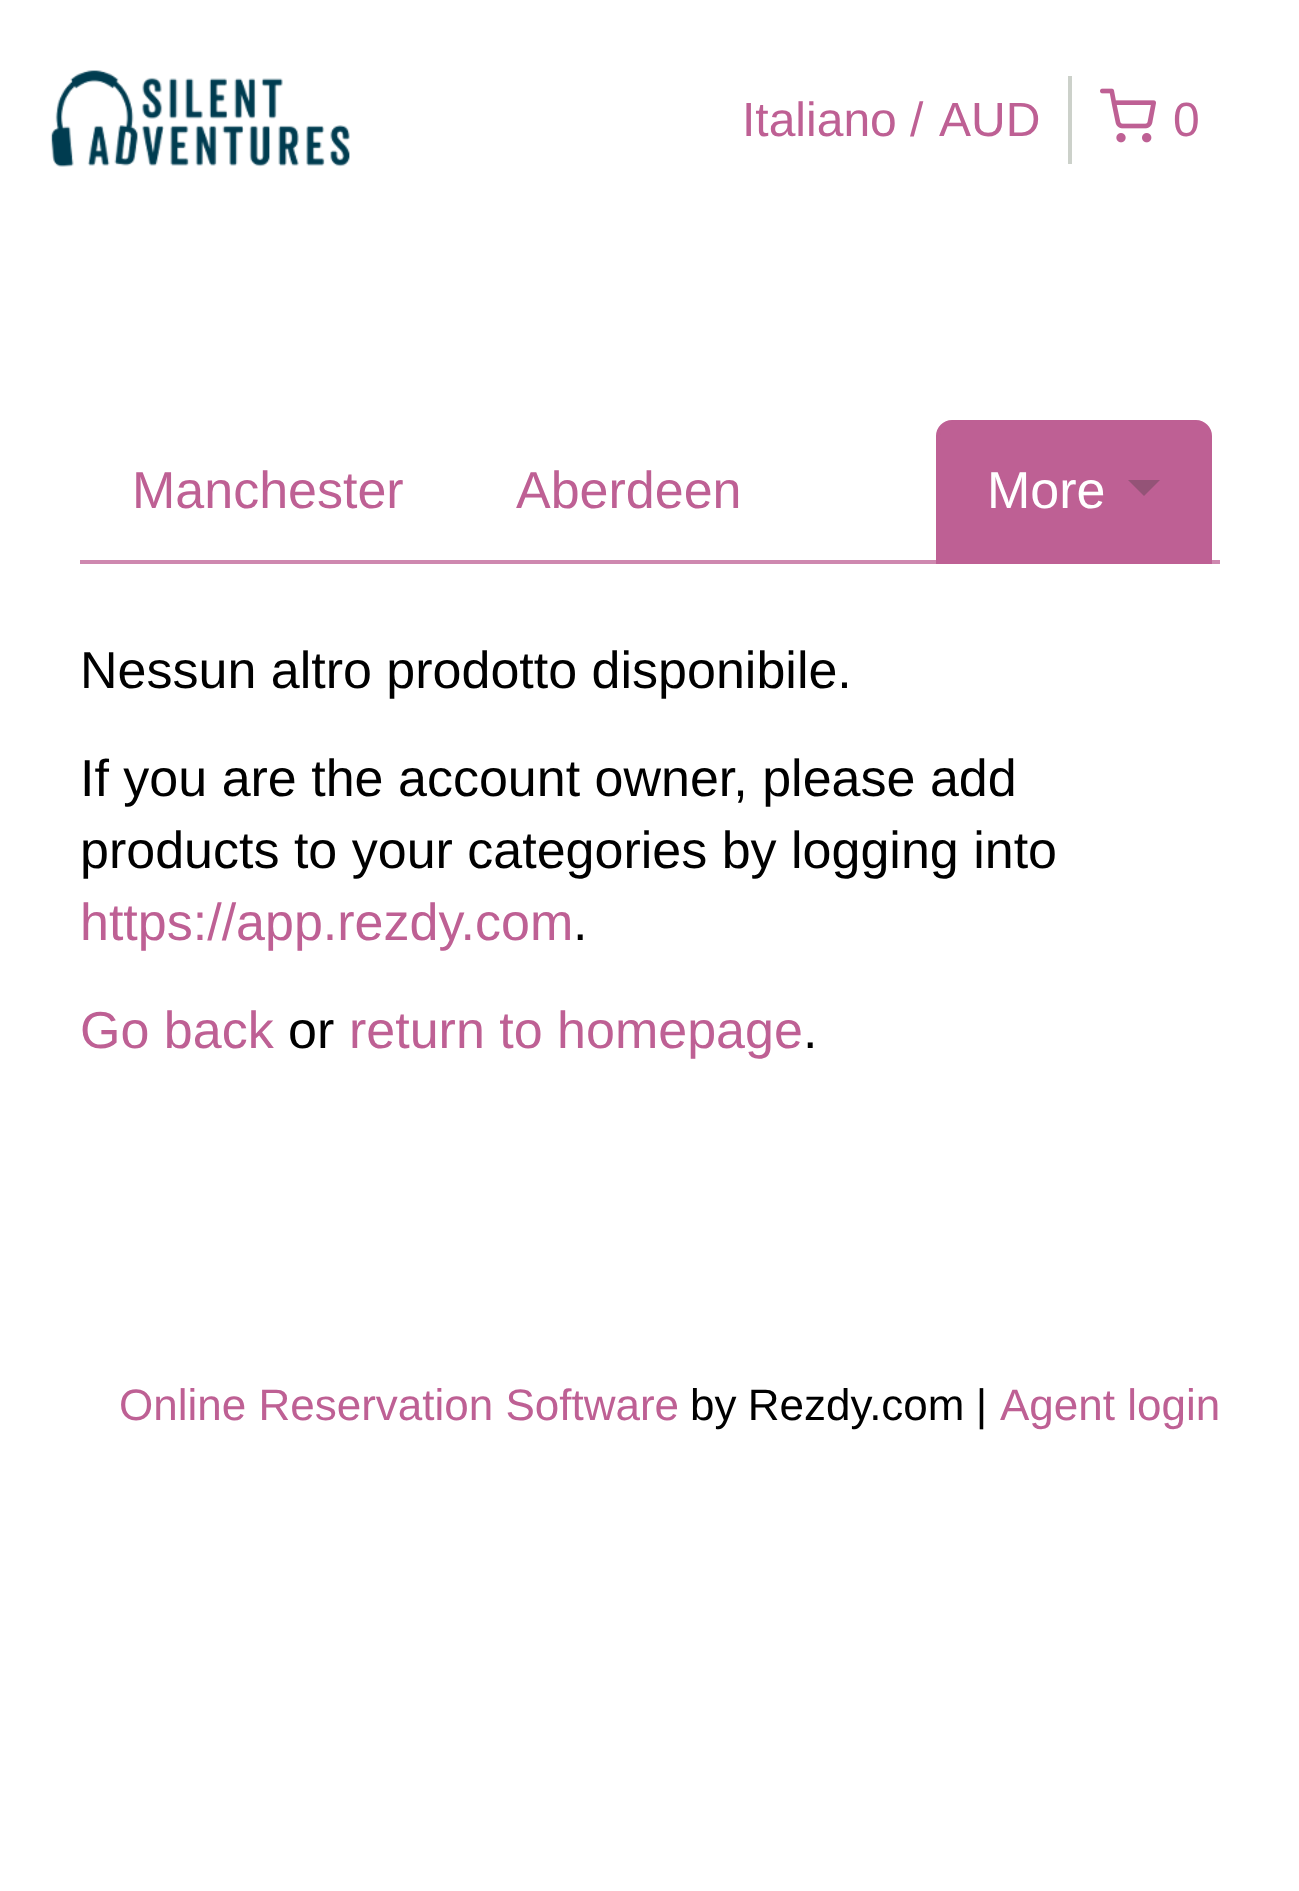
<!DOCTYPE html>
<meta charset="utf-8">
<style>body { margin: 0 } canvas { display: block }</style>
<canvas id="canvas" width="1299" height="1891"></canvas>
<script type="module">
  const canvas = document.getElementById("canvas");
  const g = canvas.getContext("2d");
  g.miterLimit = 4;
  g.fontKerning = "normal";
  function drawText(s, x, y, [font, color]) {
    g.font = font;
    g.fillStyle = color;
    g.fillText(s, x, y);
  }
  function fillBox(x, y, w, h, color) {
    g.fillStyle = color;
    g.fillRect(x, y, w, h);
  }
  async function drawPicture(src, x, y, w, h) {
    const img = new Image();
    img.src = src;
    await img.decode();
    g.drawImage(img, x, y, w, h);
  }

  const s1 = ["48px Liberation Sans", "#BE6094"];
  const s2 = ["52px Liberation Sans", "#BE6094"];
  const s3 = ["52px Liberation Sans", "#FFFFFF"];
  const s4 = ["52px Liberation Sans", "#000000"];
  const s5 = ["44px Liberation Sans", "#BE6094"];
  const s6 = ["44px Liberation Sans", "#000000"];

  fillBox(0, 0, 1299, 1891, "#FFFFFF");
  await drawPicture("pic1.png", 50, 70, 300, 97);
  fillBox(1068, 76, 4, 88, "#CCD1CA");
  drawText("Italiano /", 742, 136, s1);
  drawText("AUD", 939, 136, s1);
  await drawPicture("pic2.png", 1100, 88, 56, 55);
  drawText("0", 1173, 136, s1);
  fillBox(80, 560, 1140, 4, "#CE88AF");
  drawText("Manchester", 132, 508, s2);
  drawText("Aberdeen", 516, 508, s2);
  g.beginPath();
  g.roundRect(938, 422, 272, 140, [14, 14, 0, 0]);
  g.fill();
  g.strokeStyle = "#BE6094";
  g.lineWidth = 4;
  g.stroke();
  drawText("More", 987, 508, s3);
  g.fillStyle = "#945377";
  g.beginPath();
  g.moveTo(1128, 480);
  g.lineTo(1160, 480);
  g.lineTo(1144, 496);
  g.closePath();
  g.fill();
  drawText("Nessun altro prodotto disponibile.", 80, 688, s4);
  drawText("If you are the account owner, please add", 80, 796, s4);
  drawText("products to your categories by logging into", 80, 868, s4);
  drawText("https://app.rezdy.com", 80, 940, s2);
  drawText(".", 573, 940, s4);
  drawText("Go back", 80, 1048, s2);
  drawText("or", 288, 1048, s4);
  drawText("return to homepage", 349, 1048, s2);
  drawText(".", 803, 1048, s4);
  drawText("Online Reservation Software", 119, 1420, s5);
  g.wordSpacing = "-1px";
  drawText("by Rezdy.com |", 690, 1420, s6);
  g.wordSpacing = "0px";
  drawText("Agent login", 1000, 1420, s5);
</script>
